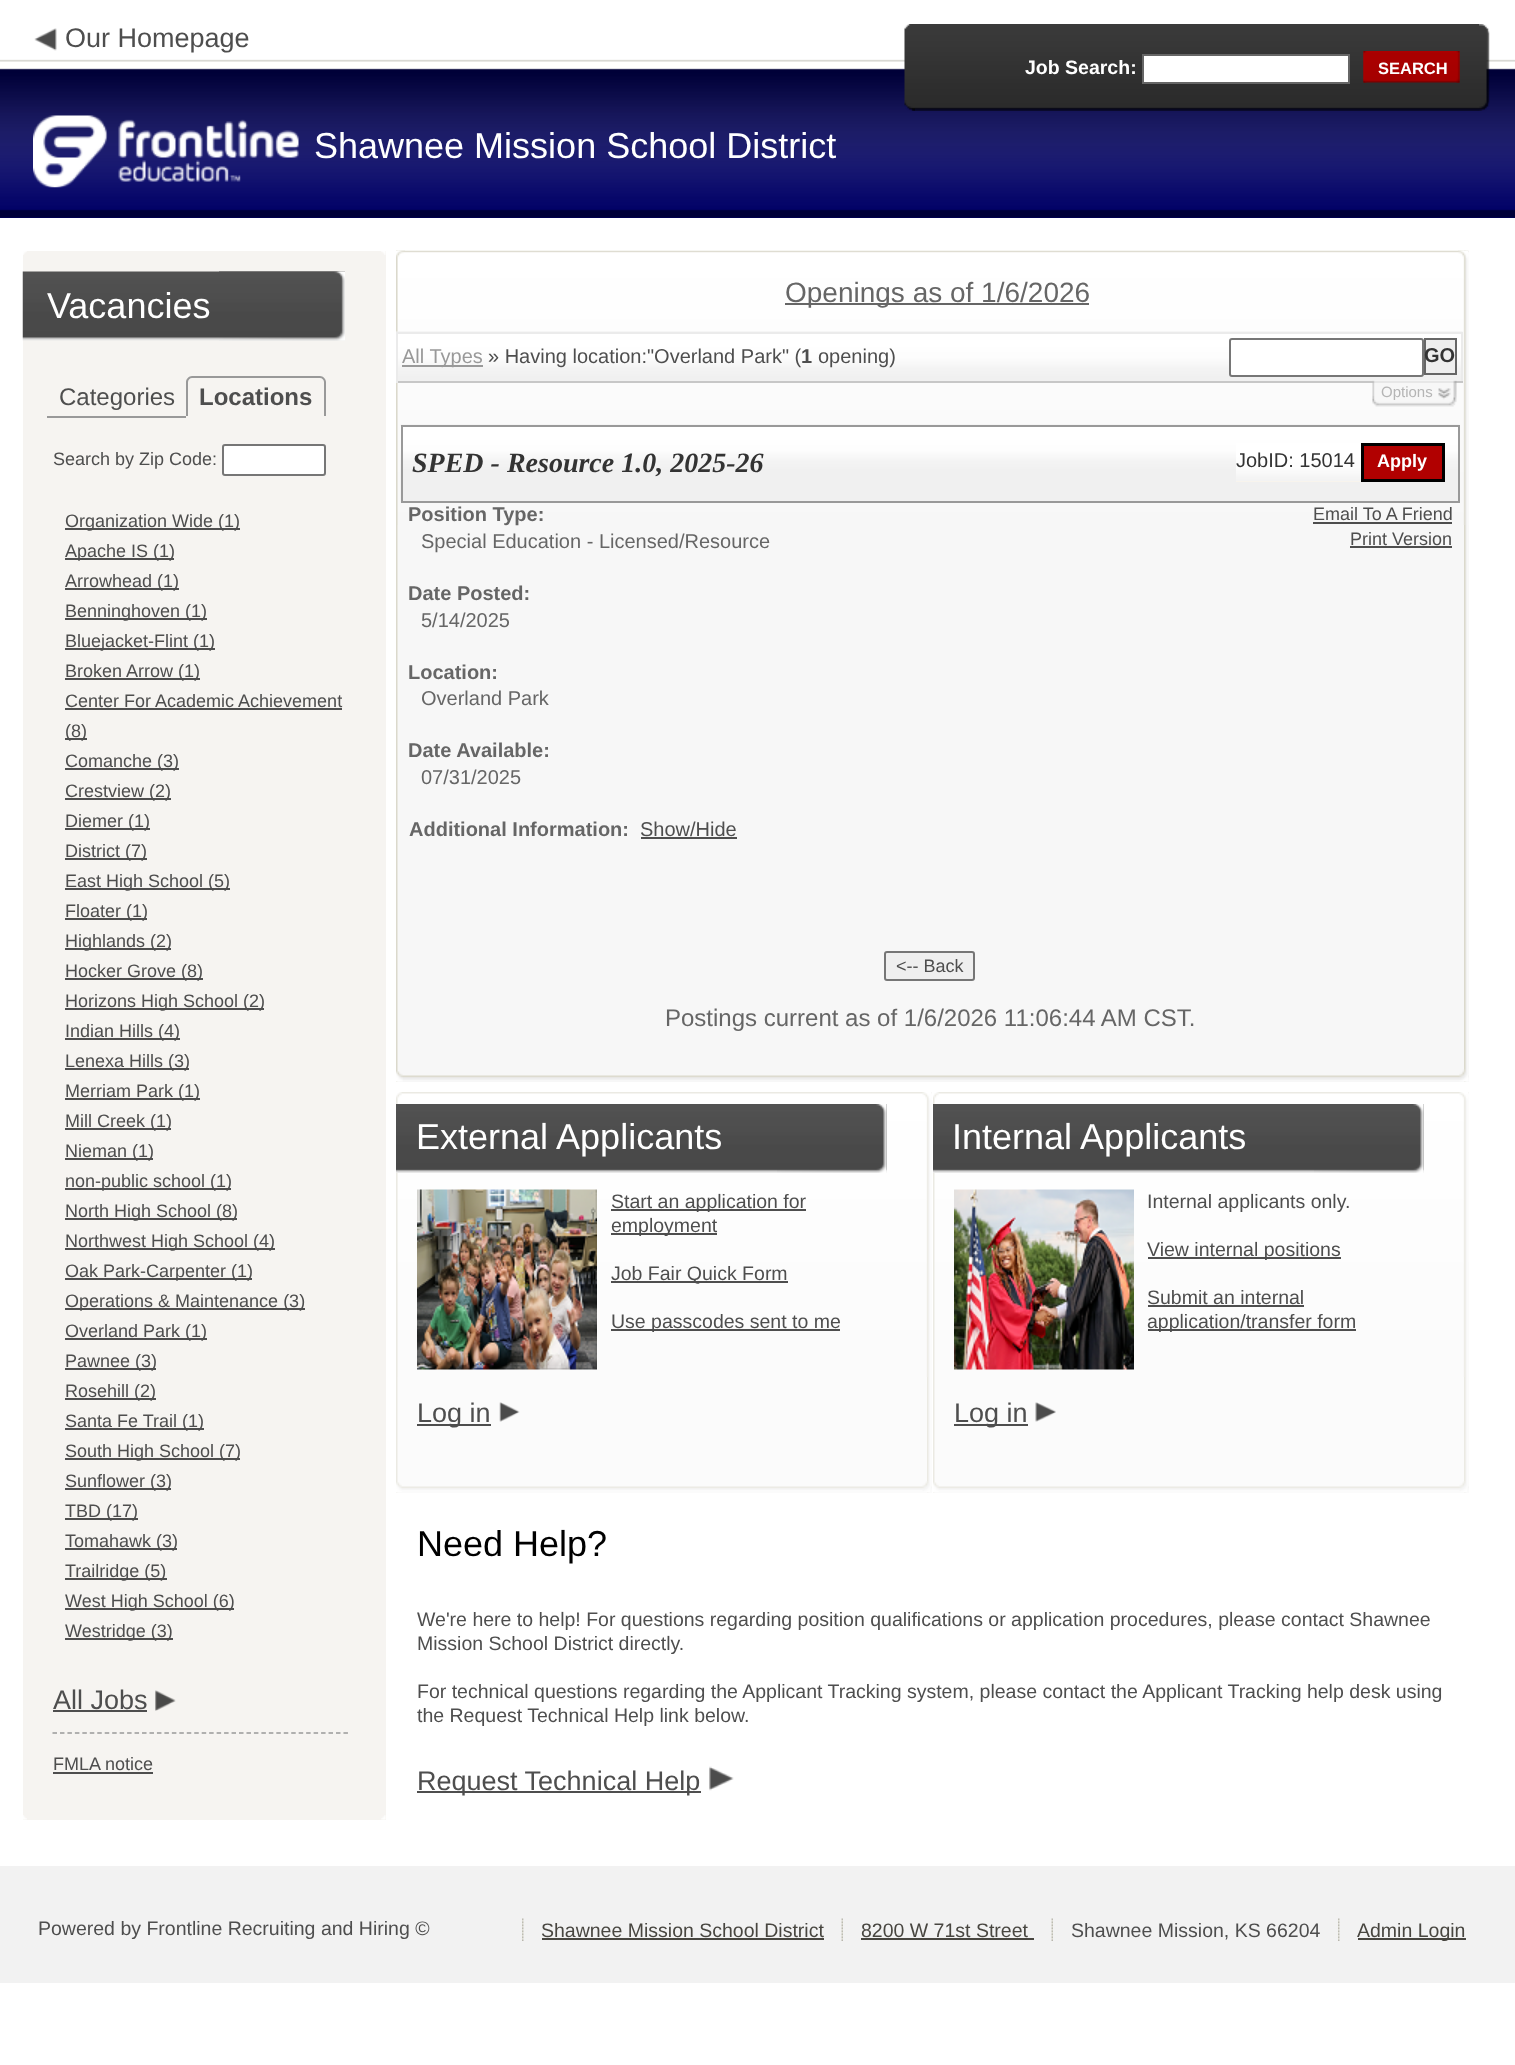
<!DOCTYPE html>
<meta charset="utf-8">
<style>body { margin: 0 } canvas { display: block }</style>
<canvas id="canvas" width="1515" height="2065"></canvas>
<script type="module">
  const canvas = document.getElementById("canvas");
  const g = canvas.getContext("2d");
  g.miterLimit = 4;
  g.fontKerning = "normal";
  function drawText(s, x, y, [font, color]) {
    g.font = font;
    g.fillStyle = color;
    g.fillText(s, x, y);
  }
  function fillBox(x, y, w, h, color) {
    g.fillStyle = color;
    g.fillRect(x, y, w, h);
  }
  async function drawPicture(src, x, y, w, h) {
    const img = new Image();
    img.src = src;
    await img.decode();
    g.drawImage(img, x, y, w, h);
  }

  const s1 = ["27px Liberation Sans", "#4E4E4E"];
  const s2 = ["36px Liberation Sans", "#FFFFFF"];
  const s3 = ["bold 19.5px Liberation Sans", "#FFFFFF"];
  const s4 = ["bold 16.5px Liberation Sans", "#FFFFFF"];
  const s5 = ["24px Liberation Sans", "#4E4E4E"];
  const s6 = ["bold 24px Liberation Sans", "#4E4E4E"];
  const s7 = ["18px Liberation Sans", "#4E4E4E"];
  const s8 = ["28px Liberation Sans", "#666666"];
  const s9 = ["20px Liberation Sans", "#999999"];
  const s10 = ["20px Liberation Sans", "#4E4E4E"];
  const s11 = ["bold 20px Liberation Sans", "#4E4E4E"];
  const s12 = ["bold 20px Liberation Sans", "#333333"];
  const s13 = ["15px Liberation Sans", "#B5B5B5"];
  const s14 = ["italic bold 28px Liberation Serif", "#333333"];
  const s15 = ["20px Liberation Sans", "#333333"];
  const s16 = ["bold 18px Liberation Sans", "#FFFFFF"];
  const s17 = ["bold 20px Liberation Sans", "#666666"];
  const s18 = ["20px Liberation Sans", "#666666"];
  const s19 = ["24px Liberation Sans", "#666666"];
  const s20 = ["19.5px Liberation Sans", "#4E4E4E"];
  const s21 = ["36px Liberation Sans", "#000000"];
  const s22 = ["19.5px Liberation Sans", "#484640"];

  fillBox(0, 0, 1515, 2065, "#FFFFFF");
  fillBox(0, 68, 1515, 150, "#000066");
  await drawPicture("pic1.png", 0, 0, 1515, 218);
  await drawPicture("pic2.png", 34, 28, 23, 23);
  drawText("Our Homepage", 65, 47, s1);
  await drawPicture("pic3.png", 33, 115, 266, 73);
  drawText("Shawnee Mission School District", 314, 158, s2);
  await drawPicture("pic4.png", 911, 24, 568, 87);
  await drawPicture("pic5.png", 1479, 24, 11, 87);
  await drawPicture("pic6.png", 904, 24, 11, 87);
  drawText("Job Search:", 1025, 74, s3);
  g.beginPath();
  g.rect(1143, 55, 206, 28);
  g.fill();
  g.strokeStyle = "#666666";
  g.lineWidth = 2;
  g.stroke();
  await drawPicture("pic7.png", 1363, 51, 97, 32);
  await drawPicture("pic8.png", 1456, 51, 4, 32);
  await drawPicture("pic9.png", 1363, 51, 4, 32);
  drawText("SEARCH", 1378, 74, s4);
  fillBox(23, 251, 363, 1569, "#F6F4F1");
  await drawPicture("pic10.png", 381, 1815, 5, 5);
  await drawPicture("pic11.png", 23, 1815, 4, 5);
  await drawPicture("pic12.png", 381, 251, 5, 4);
  await drawPicture("pic13.png", 23, 251, 4, 4);
  await drawPicture("pic14.png", 22, 271, 323, 70);
  await drawPicture("pic15.png", 219, 271, 126, 70);
  drawText("Vacancies", 47, 318, s2);
  drawText("Categories", 59, 405, s5);
  fillBox(47, 416, 139, 2, "#999999");
  g.beginPath();
  g.moveTo(192, 376);
  g.lineTo(320, 376);
  g.bezierCurveTo(323, 376, 326, 379, 326, 382);
  g.lineTo(326, 416);
  g.lineTo(186, 416);
  g.lineTo(186, 382);
  g.bezierCurveTo(186, 379, 189, 376, 192, 376);
  g.closePath();
  g.moveTo(192, 378);
  g.lineTo(320, 378);
  g.bezierCurveTo(322, 378, 324, 380, 324, 382);
  g.lineTo(324, 416);
  g.lineTo(188, 416);
  g.lineTo(188, 382);
  g.bezierCurveTo(188, 380, 190, 378, 192, 378);
  g.closePath();
  g.fill("evenodd");
  drawText("Locations", 199, 405, s6);
  drawText("Search by Zip Code:", 53, 465, s7);
  g.fillStyle = "#FFFFFF";
  g.beginPath();
  g.roundRect(223, 445, 102, 30, 2);
  g.fill();
  g.strokeStyle = "#767676";
  g.stroke();
  fillBox(65, 528, 175, 2, "#4E4E4E");
  drawText("Organization Wide (1)", 65, 527, s7);
  fillBox(65, 558, 109, 2, "#4E4E4E");
  drawText("Apache IS (1)", 65, 557, s7);
  fillBox(65, 588, 114, 2, "#4E4E4E");
  drawText("Arrowhead (1)", 65, 587, s7);
  fillBox(65, 618, 142, 2, "#4E4E4E");
  drawText("Benninghoven (1)", 65, 617, s7);
  fillBox(65, 648, 150, 2, "#4E4E4E");
  drawText("Bluejacket-Flint (1)", 65, 647, s7);
  fillBox(65, 678, 135, 2, "#4E4E4E");
  drawText("Broken Arrow (1)", 65, 677, s7);
  drawText("Center For Academic Achievement", 65, 707, s7);
  fillBox(65, 708, 277, 2, "#4E4E4E");
  fillBox(65, 738, 22, 2, "#4E4E4E");
  drawText("(8)", 65, 737, s7);
  fillBox(65, 768, 114, 2, "#4E4E4E");
  drawText("Comanche (3)", 65, 767, s7);
  fillBox(65, 798, 106, 2, "#4E4E4E");
  drawText("Crestview (2)", 65, 797, s7);
  fillBox(65, 828, 85, 2, "#4E4E4E");
  drawText("Diemer (1)", 65, 827, s7);
  fillBox(65, 858, 82, 2, "#4E4E4E");
  drawText("District (7)", 65, 857, s7);
  fillBox(65, 888, 165, 2, "#4E4E4E");
  drawText("East High School (5)", 65, 887, s7);
  fillBox(65, 918, 82, 2, "#4E4E4E");
  drawText("Floater (1)", 65, 917, s7);
  fillBox(65, 948, 106, 2, "#4E4E4E");
  drawText("Highlands (2)", 65, 947, s7);
  fillBox(65, 978, 138, 2, "#4E4E4E");
  drawText("Hocker Grove (8)", 65, 977, s7);
  fillBox(65, 1008, 199, 2, "#4E4E4E");
  drawText("Horizons High School (2)", 65, 1007, s7);
  fillBox(65, 1038, 115, 2, "#4E4E4E");
  drawText("Indian Hills (4)", 65, 1037, s7);
  fillBox(65, 1068, 124, 2, "#4E4E4E");
  drawText("Lenexa Hills (3)", 65, 1067, s7);
  fillBox(65, 1098, 135, 2, "#4E4E4E");
  drawText("Merriam Park (1)", 65, 1097, s7);
  fillBox(65, 1128, 106, 2, "#4E4E4E");
  drawText("Mill Creek (1)", 65, 1127, s7);
  fillBox(65, 1158, 88, 2, "#4E4E4E");
  drawText("Nieman (1)", 65, 1157, s7);
  fillBox(65, 1188, 166, 2, "#4E4E4E");
  drawText("non-public school (1)", 65, 1187, s7);
  fillBox(65, 1218, 172, 2, "#4E4E4E");
  drawText("North High School (8)", 65, 1217, s7);
  fillBox(65, 1248, 210, 2, "#4E4E4E");
  drawText("Northwest High School (4)", 65, 1247, s7);
  fillBox(65, 1278, 187, 2, "#4E4E4E");
  drawText("Oak Park-Carpenter (1)", 65, 1277, s7);
  fillBox(65, 1308, 240, 2, "#4E4E4E");
  drawText("Operations & Maintenance (3)", 65, 1307, s7);
  fillBox(65, 1338, 142, 2, "#4E4E4E");
  drawText("Overland Park (1)", 65, 1337, s7);
  fillBox(65, 1368, 91, 2, "#4E4E4E");
  drawText("Pawnee (3)", 65, 1367, s7);
  fillBox(65, 1398, 91, 2, "#4E4E4E");
  drawText("Rosehill (2)", 65, 1397, s7);
  fillBox(65, 1428, 139, 2, "#4E4E4E");
  drawText("Santa Fe Trail (1)", 65, 1427, s7);
  fillBox(65, 1458, 175, 2, "#4E4E4E");
  drawText("South High School (7)", 65, 1457, s7);
  fillBox(65, 1488, 106, 2, "#4E4E4E");
  drawText("Sunflower (3)", 65, 1487, s7);
  fillBox(65, 1518, 73, 2, "#4E4E4E");
  drawText("TBD (17)", 65, 1517, s7);
  fillBox(65, 1548, 112, 2, "#4E4E4E");
  drawText("Tomahawk (3)", 65, 1547, s7);
  fillBox(65, 1578, 102, 2, "#4E4E4E");
  drawText("Trailridge (5)", 65, 1577, s7);
  fillBox(65, 1608, 169, 2, "#4E4E4E");
  drawText("West High School (6)", 65, 1607, s7);
  fillBox(65, 1638, 108, 2, "#4E4E4E");
  drawText("Westridge (3)", 65, 1637, s7);
  drawText("All Jobs", 53, 1709, s1);
  fillBox(53, 1710, 94, 2, "#4E4E4E");
  await drawPicture("pic16.png", 155, 1690, 21, 21);
  g.beginPath();
  g.moveTo(52.5, 1733);
  g.lineTo(348, 1733);
  g.strokeStyle = "#999999";
  g.lineWidth = 1.5;
  g.setLineDash([4.5, 2.96]);
  g.stroke();
  drawText("FMLA notice", 53, 1770, s7);
  fillBox(53, 1772, 100, 2, "#4E4E4E");
  fillBox(396, 251, 1073, 831, "#F7F7F7");
  await drawPicture("pic17.png", 403, 1075, 1066, 5);
  await drawPicture("pic18.png", 1464, 250, 5, 832);
  await drawPicture("pic19.png", 396, 250, 2, 832);
  await drawPicture("pic20.png", 396, 250, 1073, 275);
  await drawPicture("pic21.png", 1459, 1069, 10, 13);
  await drawPicture("pic22.png", 396, 1071, 7, 11);
  await drawPicture("pic23.png", 1458, 250, 11, 275);
  await drawPicture("pic24.png", 396, 250, 9, 275);
  fillBox(785, 303, 304, 2, "#666666");
  drawText("Openings as of 1/6/2026", 785, 302, s8);
  await drawPicture("pic25.png", 396, 331, 1067, 50);
  fillBox(396, 332, 1067, 2, "#EBEBEB");
  fillBox(1461, 332, 2, 51, "#EBEBEB");
  fillBox(396, 381, 1067, 2, "#C7C7C7");
  fillBox(396, 332, 2, 51, "#EBEBEB");
  fillBox(402, 365, 81, 2, "#999999");
  drawText("All Types", 402, 363, s9);
  drawText("» Having location:\"Overland Park\" (", 488, 363, s10);
  drawText("1", 801, 363, s11);
  drawText("opening)", 818, 363, s10);
  g.fillStyle = "#FFFFFF";
  g.beginPath();
  g.roundRect(1230, 339, 193, 37, 2);
  g.fill();
  g.strokeStyle = "#767676";
  g.lineWidth = 2;
  g.setLineDash([]);
  g.stroke();
  g.fillStyle = "#EEEEEE";
  g.beginPath();
  g.rect(1425, 339, 31, 35);
  g.fill();
  g.strokeStyle = "#666666";
  g.stroke();
  drawText("GO", 1424, 362, s12);
  await drawPicture("pic26.png", 1372, 380, 85, 27);
  drawText("Options", 1381, 397, s13);
  await drawPicture("pic27.png", 400, 424, 1060, 79);
  g.strokeStyle = "#999999";
  g.strokeRect(402, 426, 1057, 76);
  drawText("SPED - Resource 1.0, 2025-26", 412, 472, s14);
  fillBox(1236, 481, 125, 1, "#FDF5E6");
  await drawPicture("pic28.png", 1236, 443, 125, 39);
  drawText("JobID: 15014", 1236, 467, s15);
  g.fillStyle = "#B10000";
  g.beginPath();
  g.rect(1362.5, 444.5, 81, 36);
  g.fill();
  g.strokeStyle = "#000000";
  g.lineWidth = 3;
  g.stroke();
  drawText("Apply", 1377, 467, s16);
  drawText("Position Type:", 408, 521, s17);
  drawText("Special Education - Licensed/Resource", 421, 548, s18);
  drawText("Email To A Friend", 1313, 520, s7);
  fillBox(1313, 522, 139, 2, "#4E4E4E");
  drawText("Print Version", 1350, 545, s7);
  fillBox(1350, 546, 102, 2, "#4E4E4E");
  drawText("Date Posted:", 408, 600, s17);
  drawText("5/14/2025", 421, 627, s18);
  drawText("Location:", 408, 679, s17);
  drawText("Overland Park", 421, 705, s18);
  drawText("Date Available:", 408, 757, s17);
  drawText("07/31/2025", 421, 784, s18);
  drawText("Additional Information:", 409, 836, s17);
  drawText("Show/Hide", 640, 836, s10);
  fillBox(641, 837, 96, 2, "#4E4E4E");
  g.fillStyle = "#EFEFEF";
  g.beginPath();
  g.roundRect(885, 952, 89, 28, 2);
  g.fill();
  g.strokeStyle = "#767676";
  g.lineWidth = 2;
  g.stroke();
  drawText("<-- Back", 896, 972, s7);
  drawText("Postings current as of 1/6/2026 11:06:44 AM CST.", 665, 1026, s19);
  fillBox(396, 1092, 536, 401, "#FBFBFB");
  await drawPicture("pic29.png", 402, 1486, 530, 4);
  await drawPicture("pic30.png", 927, 1092, 5, 401);
  await drawPicture("pic31.png", 396, 1377, 2, 116);
  await drawPicture("pic32.png", 402, 1092, 530, 285);
  await drawPicture("pic33.png", 922, 1481, 8, 11);
  await drawPicture("pic34.png", 396, 1482, 6, 10);
  await drawPicture("pic35.png", 922, 1092, 10, 285);
  await drawPicture("pic36.png", 396, 1092, 6, 285);
  await drawPicture("pic37.png", 396, 1104, 491, 69);
  await drawPicture("pic38.png", 777, 1104, 110, 69);
  drawText("External Applicants", 416, 1149, s2);
  await drawPicture("pic39.png", 417, 1189, 180, 181);
  fillBox(611, 1209, 195, 2, "#4E4E4E");
  drawText("Start an application for", 611, 1208, s20);
  fillBox(611, 1233, 106, 2, "#4E4E4E");
  drawText("employment", 611, 1232, s20);
  fillBox(611, 1281, 177, 2, "#4E4E4E");
  drawText("Job Fair Quick Form", 611, 1280, s20);
  fillBox(611, 1329, 229, 2, "#4E4E4E");
  drawText("Use passcodes sent to me", 611, 1328, s20);
  fillBox(417, 1424, 74, 2, "#4E4E4E");
  drawText("Log in", 417, 1422, s1);
  await drawPicture("pic40.png", 499, 1402, 21, 20);
  fillBox(933, 1092, 536, 401, "#FBFBFB");
  await drawPicture("pic29.png", 939, 1486, 530, 4);
  await drawPicture("pic41.png", 1464, 1092, 5, 401);
  await drawPicture("pic31.png", 933, 1377, 2, 116);
  await drawPicture("pic32.png", 939, 1092, 530, 285);
  await drawPicture("pic42.png", 1459, 1481, 8, 11);
  await drawPicture("pic43.png", 933, 1482, 6, 10);
  await drawPicture("pic44.png", 1459, 1092, 10, 285);
  await drawPicture("pic45.png", 933, 1092, 6, 285);
  await drawPicture("pic37.png", 933, 1104, 491, 69);
  await drawPicture("pic46.png", 1314, 1104, 110, 69);
  drawText("Internal Applicants", 952, 1149, s2);
  await drawPicture("pic47.png", 954, 1189, 180, 181);
  drawText("Internal applicants only.", 1147, 1208, s20);
  fillBox(1148, 1257, 193, 2, "#4E4E4E");
  drawText("View internal positions", 1147, 1256, s20);
  drawText("Submit an internal", 1147, 1304, s20);
  fillBox(1148, 1305, 156, 2, "#4E4E4E");
  fillBox(1148, 1329, 208, 2, "#4E4E4E");
  drawText("application/transfer form", 1147, 1328, s20);
  fillBox(954, 1424, 74, 2, "#4E4E4E");
  drawText("Log in", 954, 1422, s1);
  await drawPicture("pic48.png", 1035, 1402, 21, 20);
  drawText("Need Help?", 417, 1556, s21);
  drawText("We're here to help! For questions regarding position qualifications or application procedures, please contact Shawnee", 417, 1626, s20);
  drawText("Mission School District directly.", 417, 1650, s20);
  drawText("For technical questions regarding the Applicant Tracking system, please contact the Applicant Tracking help desk using", 417, 1698, s20);
  drawText("the Request Technical Help link below.", 417, 1722, s20);
  fillBox(417, 1791, 284, 2, "#4E4E4E");
  drawText("Request Technical Help", 417, 1790, s1);
  await drawPicture("pic49.png", 709, 1766, 25, 25);
  fillBox(0, 1866, 1515, 117, "#F2F2F2");
  drawText("Powered by Frontline Recruiting and Hiring ©", 38, 1935, s20);
  await drawPicture("pic50.png", 522, 1918, 2, 23);
  drawText("Shawnee Mission School District", 541, 1937, s22);
  fillBox(542, 1938, 282, 2, "#484640");
  await drawPicture("pic51.png", 841, 1918, 2, 23);
  drawText("8200 W 71st Street", 861, 1937, s22);
  fillBox(861, 1938, 173, 2, "#484640");
  await drawPicture("pic51.png", 1051, 1918, 2, 23);
  drawText("Shawnee Mission, KS 66204", 1071, 1937, s20);
  await drawPicture("pic50.png", 1338, 1918, 2, 23);
  fillBox(1358, 1938, 108, 2, "#484640");
  drawText("Admin Login", 1357, 1937, s22);
</script>
